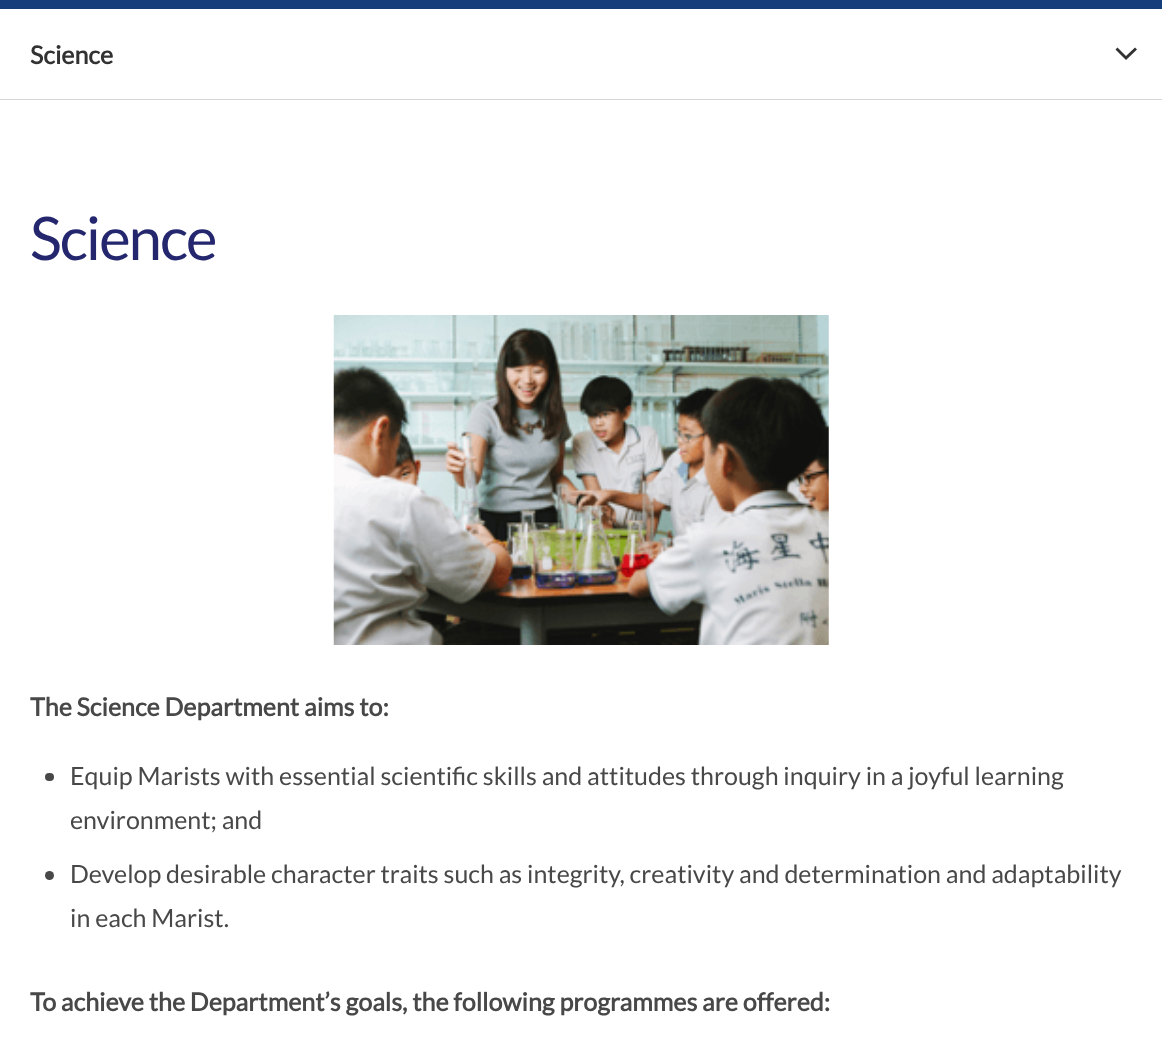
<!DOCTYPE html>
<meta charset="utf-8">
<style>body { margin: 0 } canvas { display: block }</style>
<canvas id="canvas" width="1162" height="1055"></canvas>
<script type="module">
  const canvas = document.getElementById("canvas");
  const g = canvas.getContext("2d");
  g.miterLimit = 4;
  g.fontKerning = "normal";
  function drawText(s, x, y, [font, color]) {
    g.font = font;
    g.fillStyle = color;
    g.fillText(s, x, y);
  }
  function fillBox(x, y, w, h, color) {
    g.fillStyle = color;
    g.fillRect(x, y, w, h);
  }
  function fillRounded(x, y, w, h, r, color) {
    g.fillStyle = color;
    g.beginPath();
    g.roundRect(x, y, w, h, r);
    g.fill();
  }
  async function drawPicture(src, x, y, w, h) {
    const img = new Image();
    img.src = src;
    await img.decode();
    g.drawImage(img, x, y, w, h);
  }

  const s1 = ["bold 25px Lato", "#323232"];
  const s2 = ["60px Lato", "#24276E"];
  const s3 = ["bold 25px Lato", "#484848"];
  const s4 = ["25px Lato", "#484848"];

  fillBox(0, 0, 1162, 1055, "#FFFFFF");
  fillBox(0, 0, 1162, 9, "#153E7B");
  fillBox(0, 99, 1162, 1, "#D6D6D6");
  drawText("Science", 30, 64, s1);
  g.beginPath();
  g.moveTo(1124, 58);
  g.lineTo(1115.5, 49.5);
  g.lineTo(1117.5, 47.5);
  g.lineTo(1126, 56);
  g.lineTo(1135, 47.5);
  g.lineTo(1137, 49.5);
  g.lineTo(1126, 60);
  g.closePath();
  g.fill();
  g.letterSpacing = "-2px";
  drawText("Science", 30, 260, s2);
  await drawPicture("pic1.png", 333, 315, 496, 330);
  g.letterSpacing = "0px";
  drawText("The Science Department aims to:", 30, 716, s3);
  fillRounded(45, 773, 9, 8, 4, "#484848");
  drawText("Equip Marists with essential scientific skills and attitudes through inquiry in a joyful learning", 70, 785, s4);
  drawText("environment; and", 70, 829, s4);
  g.beginPath();
  g.arc(49.5, 875.5, 4.5, 0, Math.PI * 2);
  g.fill();
  drawText("Develop desirable character traits such as integrity, creativity and determination and adaptability", 70, 883, s4);
  drawText("in each Marist.", 70, 927, s4);
  drawText("To achieve the Department’s goals, the following programmes are offered:", 30, 1011, s3);
</script>
